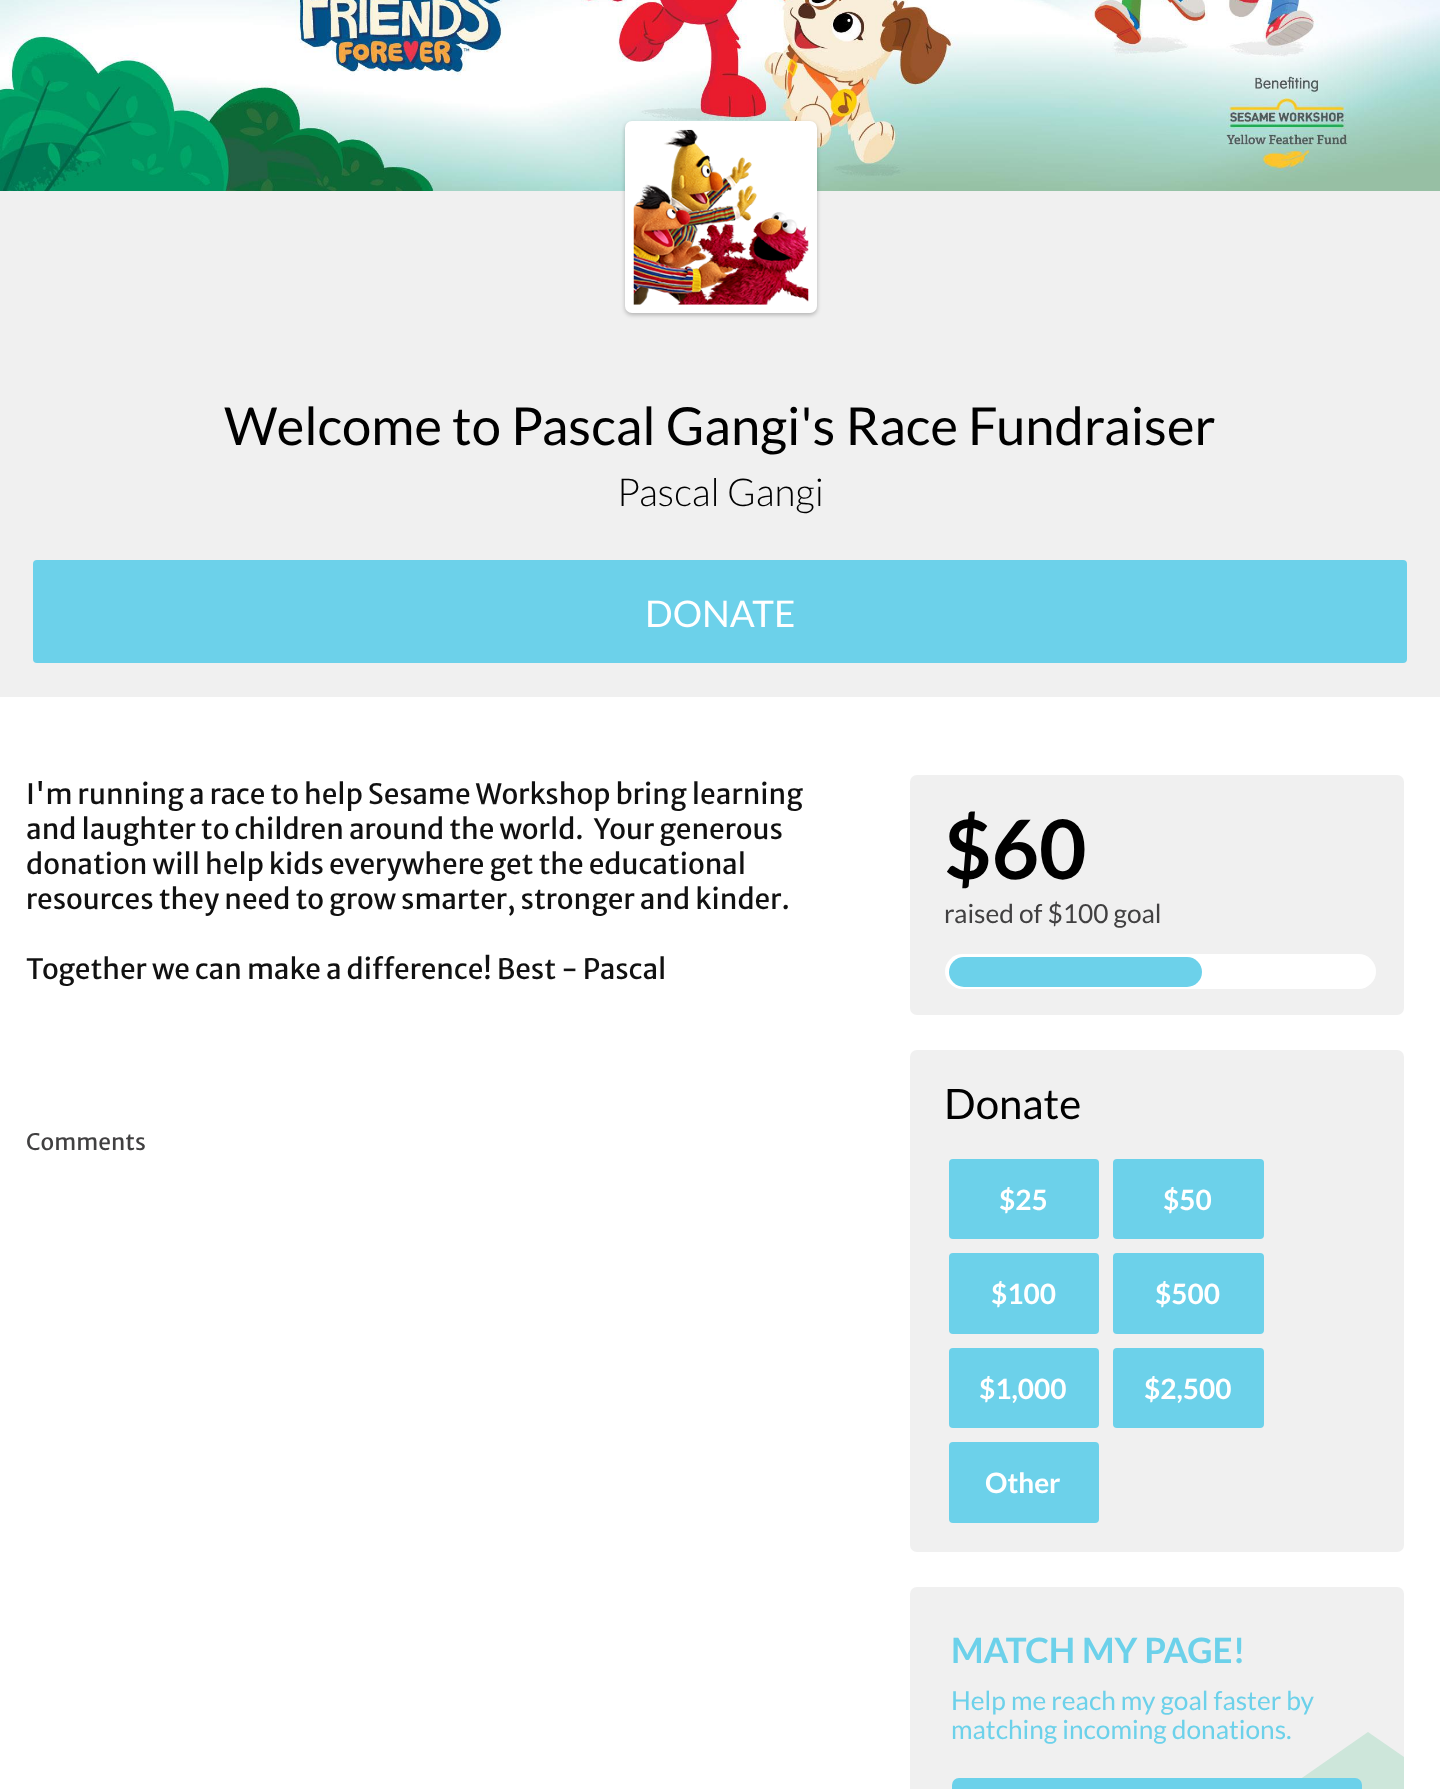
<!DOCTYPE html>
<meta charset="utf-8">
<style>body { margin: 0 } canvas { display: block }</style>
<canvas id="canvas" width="1440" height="1789"></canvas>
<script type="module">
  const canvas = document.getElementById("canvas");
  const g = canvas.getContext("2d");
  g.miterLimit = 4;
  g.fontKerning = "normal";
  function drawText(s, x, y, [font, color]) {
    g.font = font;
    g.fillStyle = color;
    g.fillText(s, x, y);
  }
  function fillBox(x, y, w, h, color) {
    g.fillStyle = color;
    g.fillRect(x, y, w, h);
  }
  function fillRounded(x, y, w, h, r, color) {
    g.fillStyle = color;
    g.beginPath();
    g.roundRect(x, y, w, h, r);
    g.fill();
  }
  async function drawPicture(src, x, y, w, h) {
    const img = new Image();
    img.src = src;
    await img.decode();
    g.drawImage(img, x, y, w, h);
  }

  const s1 = ["52.5px Lato", "#000000"];
  const s2 = ["300 38.5px Lato", "#000000"];
  const s3 = ["36.75px Lato", "#FFFFFF"];
  const s4 = ["28px Merriweather Sans", "#111111"];
  const s5 = ["22.75px Merriweather Sans", "#414041"];
  const s6 = ["bold 82px Lato", "#000000"];
  const s7 = ["26.25px Lato", "#414041"];
  const s8 = ["42px Lato", "#000000"];
  const s9 = ["bold 28px Lato", "#FFFFFF"];
  const s10 = ["bold 35px Lato", "#6CD1EA"];
  const s11 = ["26.25px Lato", "#6CD1EA"];

  fillBox(0, 0, 1440, 1789, "#FFFFFF");
  await drawPicture("pic1.png", 0, 0, 1440, 191);
  fillBox(0, 191, 1440, 506, "#F0F0F0");
  g.fillStyle = "rgba(0, 0, 0, 0.25)";
  g.filter = "blur(2px)";
  g.beginPath();
  g.roundRect(625, 123, 192, 192, 7);
  g.fill();
  g.filter = "none";
  g.beginPath();
  g.roundRect(629.5, 125.5, 183, 183, 2.5);
  g.strokeStyle = "#FFFFFF";
  g.lineWidth = 9;
  g.stroke();
  fillBox(634, 130, 174, 174, "#FFFFFF");
  await drawPicture("pic2.png", 633, 129, 176, 176);
  drawText("Welcome to Pascal Gangi's Race Fundraiser", 224, 445, s1);
  drawText("Pascal Gangi", 617, 506, s2);
  fillRounded(33, 560, 1374, 103, 4, "#6CD1EA");
  drawText("DONATE", 645, 627, s3);
  drawText("I'm running a race to help Sesame Workshop bring learning", 26, 804, s4);
  drawText("and laughter to children around the world.  Your generous", 26, 839, s4);
  drawText("donation will help kids everywhere get the educational", 26, 874, s4);
  drawText("resources they need to grow smarter, stronger and kinder.", 26, 909, s4);
  drawText("Together we can make a difference! Best - Pascal", 26, 979, s4);
  drawText("Comments", 26, 1150, s5);
  fillRounded(910, 775, 494, 240, 7, "#F0F0F0");
  drawText("$60", 944, 879, s6);
  drawText("raised of $100 goal", 944, 923, s7);
  fillRounded(945, 954, 431, 35, 17.5, "#FFFFFF");
  fillRounded(949, 957, 253, 30, 15, "#6CD1EA");
  fillRounded(910, 1050, 494, 502, 7, "#F0F0F0");
  drawText("Donate", 944, 1119, s8);
  fillRounded(949, 1159, 150, 80, 4, "#6CD1EA");
  drawText("$25", 999, 1210, s9);
  fillRounded(1113, 1159, 151, 80, 4, "#6CD1EA");
  drawText("$50", 1163, 1210, s9);
  fillRounded(949, 1253, 150, 81, 4, "#6CD1EA");
  drawText("$100", 991, 1304, s9);
  fillRounded(1113, 1253, 151, 81, 4, "#6CD1EA");
  drawText("$500", 1155, 1304, s9);
  fillRounded(949, 1348, 150, 80, 4, "#6CD1EA");
  drawText("$1,000", 979, 1399, s9);
  fillRounded(1113, 1348, 151, 80, 4, "#6CD1EA");
  drawText("$2,500", 1144, 1399, s9);
  fillRounded(949, 1442, 150, 81, 4, "#6CD1EA");
  drawText("Other", 985, 1493, s9);
  fillRounded(910, 1587, 494, 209, 7, "#F0F0F0");
  drawText("MATCH MY PAGE!", 951, 1663, s10);
  drawText("Help me reach my goal faster by", 951, 1710, s11);
  g.fillStyle = "#CDE6DA";
  g.beginPath();
  g.moveTo(1141, 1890);
  g.lineTo(1397, 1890);
  g.bezierCurveTo(1401, 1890, 1404, 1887, 1404, 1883);
  g.lineTo(1404, 1757);
  g.lineTo(1368, 1732);
  g.closePath();
  g.fill();
  drawText("matching incoming donations.", 951, 1739, s11);
  fillRounded(952, 1778, 410, 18, 7, "#6CD1EA");
</script>
